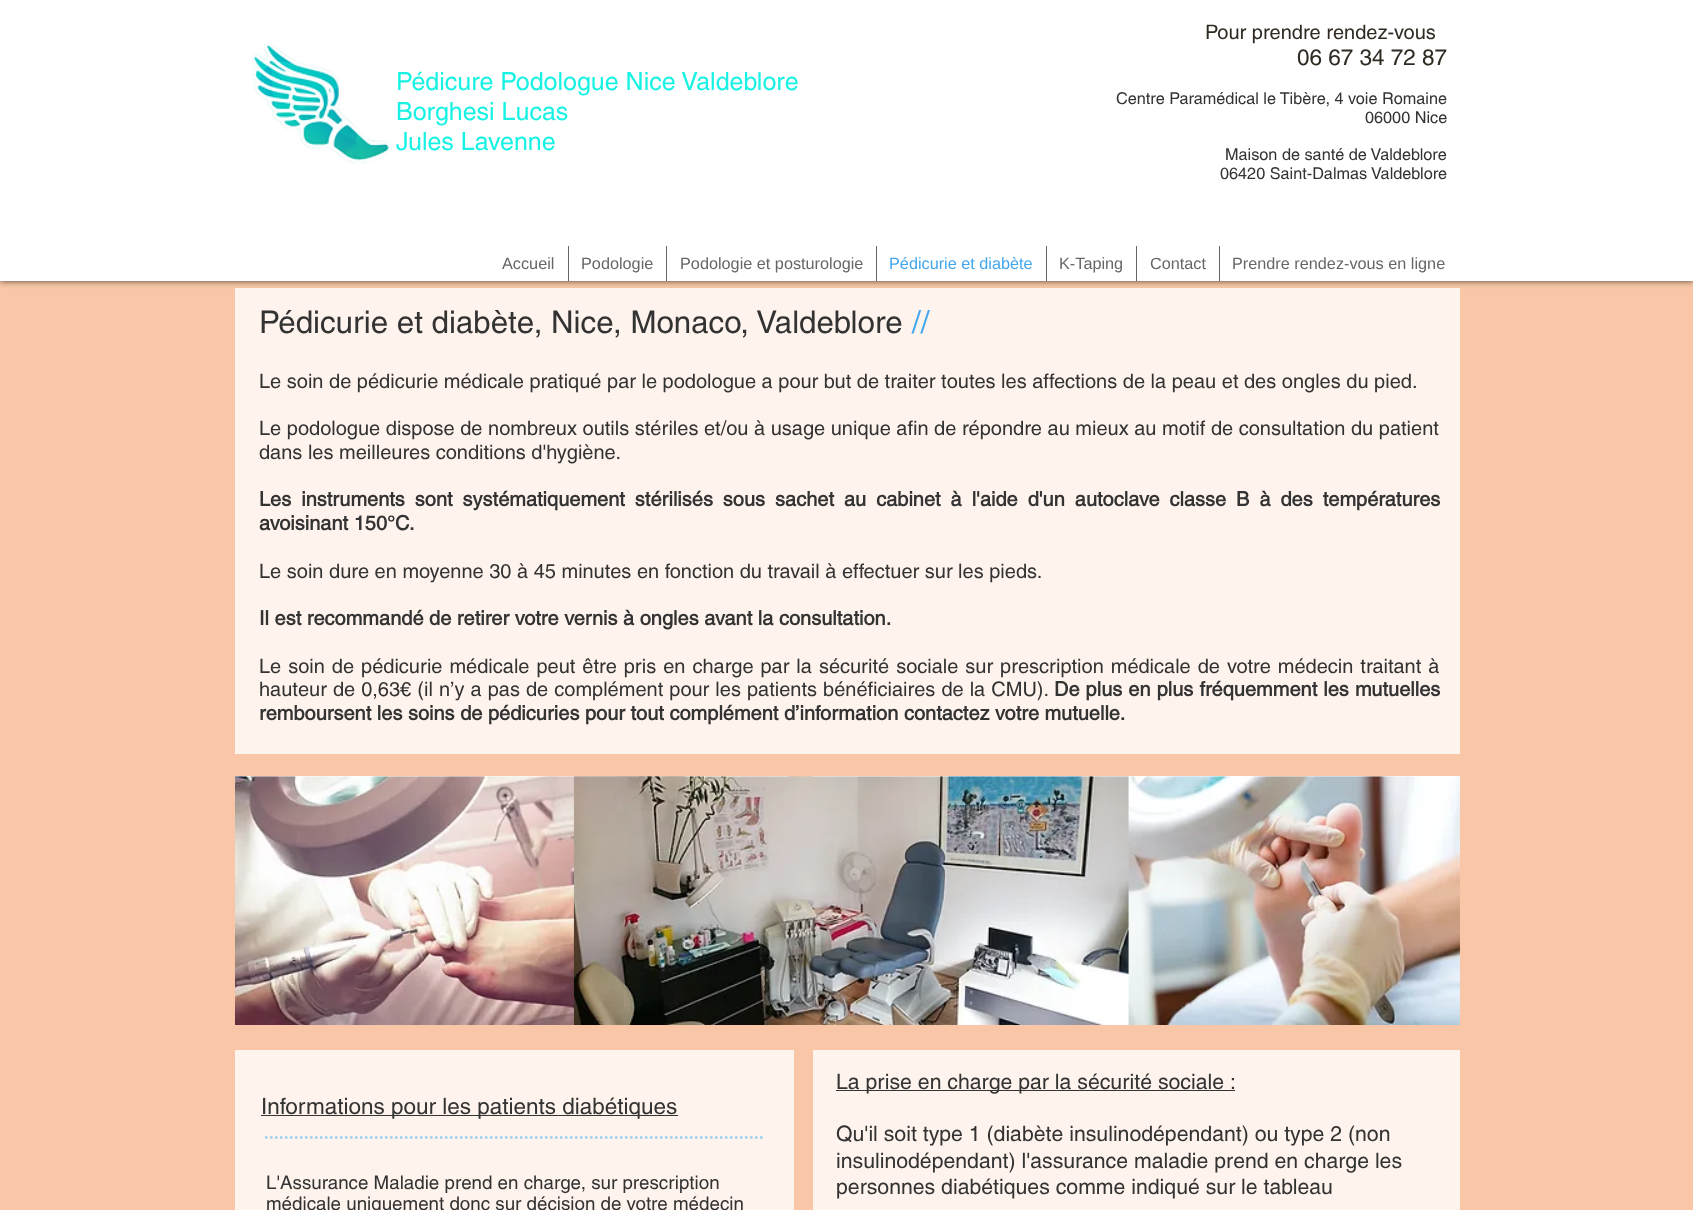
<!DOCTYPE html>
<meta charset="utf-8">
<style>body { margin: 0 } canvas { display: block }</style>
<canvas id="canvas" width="1693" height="1210"></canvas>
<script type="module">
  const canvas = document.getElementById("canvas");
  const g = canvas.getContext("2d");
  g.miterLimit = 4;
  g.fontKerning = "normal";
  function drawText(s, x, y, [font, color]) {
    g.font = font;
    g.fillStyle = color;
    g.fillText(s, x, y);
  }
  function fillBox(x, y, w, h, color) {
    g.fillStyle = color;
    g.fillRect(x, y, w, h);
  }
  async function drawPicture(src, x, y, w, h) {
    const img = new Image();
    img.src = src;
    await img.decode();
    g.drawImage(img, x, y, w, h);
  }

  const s1 = ["25px helvetica", "#18F2E4"];
  const s2 = ["20px helvetica", "#302B22"];
  const s3 = ["22.5px helvetica", "#302B22"];
  const s4 = ["16.25px helvetica", "#333333"];
  const s5 = ["16.25px Liberation Sans", "#666666"];
  const s6 = ["16.25px Liberation Sans", "#42A6ED"];
  const s7 = ["31.25px helvetica", "#333333"];
  const s8 = ["31.25px helvetica", "#42A6ED"];
  const s9 = ["20px helvetica", "#333333"];
  const s10 = ["bold 20px helvetica", "#333333"];
  const s11 = ["22.5px helvetica", "#333333"];
  const s12 = ["18.75px helvetica", "#333333"];
  const s13 = ["21.25px helvetica", "#333333"];

  fillBox(0, 0, 1693, 1210, "#F9C7A7");
  fillBox(235, 288, 1225, 466, "#FEF3ED");
  g.fillStyle = "rgba(0, 0, 0, 0.7)";
  g.filter = "blur(3px)";
  g.beginPath();
  g.rect(0, 0, 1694, 281);
  g.fill();
  g.filter = "none";
  fillBox(0, 0, 1693, 281, "#FFFFFF");
  await drawPicture("pic1.png", 250, 43, 142, 121);
  drawText("Pédicure Podologue Nice Valdeblore", 396, 90, s1);
  drawText("Borghesi Lucas", 396, 120, s1);
  drawText("Jules Lavenne", 396, 150, s1);
  drawText("Pour prendre rendez-vous", 1205, 39, s2);
  drawText("06 67 34 72 87", 1297, 65, s3);
  drawText("Centre Paramédical le Tibère, 4 voie Romaine", 1116, 104, s4);
  drawText("06000 Nice", 1365, 123, s4);
  drawText("Maison de santé de Valdeblore", 1225, 160, s4);
  drawText("06420 Saint-Dalmas Valdeblore", 1220, 179, s4);
  drawText("Accueil", 502, 269, s5);
  fillBox(568, 246, 1, 35, "#666666");
  drawText("Podologie", 581, 269, s5);
  fillBox(666, 246, 1, 35, "#666666");
  drawText("Podologie et posturologie", 680, 269, s5);
  fillBox(876, 246, 1, 35, "#666666");
  drawText("Pédicurie et diabète", 889, 269, s6);
  fillBox(1046, 246, 1, 35, "#666666");
  drawText("K-Taping", 1059, 269, s5);
  fillBox(1136, 246, 1, 35, "#666666");
  drawText("Contact", 1150, 269, s5);
  fillBox(1219, 246, 1, 35, "#666666");
  drawText("Prendre rendez-vous en ligne", 1232, 269, s5);
  drawText("Pédicurie et diabète, Nice, Monaco, Valdeblore", 259, 333, s7);
  drawText("//", 912, 333, s8);
  drawText("Le soin de pédicurie médicale pratiqué par le podologue a pour but de traiter toutes les affections de la peau et des ongles du pied.", 259, 388, s9);
  drawText("Le podologue dispose de nombreux outils stériles et/ou à usage unique afin de répondre au mieux au motif de consultation du patient", 259, 435, s9);
  drawText("dans les meilleures conditions d'hygiène.", 259, 459, s9);
  g.wordSpacing = "4.4px";
  drawText("Les instruments sont systématiquement stérilisés sous sachet au cabinet à l'aide d'un autoclave classe B à des températures", 259, 506, s10);
  g.wordSpacing = "0px";
  drawText("avoisinant 150°C.", 259, 530, s10);
  drawText("Le soin dure en moyenne 30 à 45 minutes en fonction du travail à effectuer sur les pieds.", 259, 578, s9);
  drawText("Il est recommandé de retirer votre vernis à ongles avant la consultation.", 259, 625, s10);
  g.wordSpacing = "1.4px";
  drawText("Le soin de pédicurie médicale peut être pris en charge par la sécurité sociale sur prescription médicale de votre médecin traitant à", 259, 673, s9);
  g.wordSpacing = "0.5px";
  drawText("hauteur de 0,63€ (il n’y a pas de complément pour les patients bénéficiaires de la CMU).", 259, 696, s9);
  drawText("De plus en plus fréquemment les mutuelles", 1054, 696, s10);
  g.wordSpacing = "0px";
  drawText("remboursent les soins de pédicuries pour tout complément d’information contactez votre mutuelle.", 259, 720, s10);
  fillBox(235, 776, 553, 1, "#FFFFFF");
  await drawPicture("pic2.png", 235, 776, 450, 249);
  fillBox(813, 776, 647, 1, "#FFFFFF");
  await drawPicture("pic4.png", 1086, 776, 374, 249);
  await drawPicture("pic3.png", 573, 776, 556, 249);
  fillBox(235, 1050, 559, 160, "#FEF3ED");
  fillBox(261, 1115, 417, 1, "#333333");
  drawText("Informations pour les patients diabétiques", 261, 1114, s11);
  g.beginPath();
  g.moveTo(265, 1137.5);
  g.lineTo(765, 1137.5);
  g.strokeStyle = "#9BCFF3";
  g.lineWidth = 2.5;
  g.setLineDash([2.5, 2.5]);
  g.stroke();
  drawText("L'Assurance Maladie prend en charge, sur prescription", 266, 1189, s12);
  drawText("médicale uniquement donc sur décision de votre médecin", 266, 1210, s12);
  fillBox(813, 1050, 647, 160, "#FEF3ED");
  fillBox(836, 1090, 399, 1, "#333333");
  drawText("La prise en charge par la sécurité sociale :", 836, 1089, s13);
  drawText("Qu'il soit type 1 (diabète insulinodépendant) ou type 2 (non", 836, 1141, s13);
  drawText("insulinodépendant) l'assurance maladie prend en charge les", 836, 1168, s13);
  drawText("personnes diabétiques comme indiqué sur le tableau", 836, 1194, s13);
</script>
